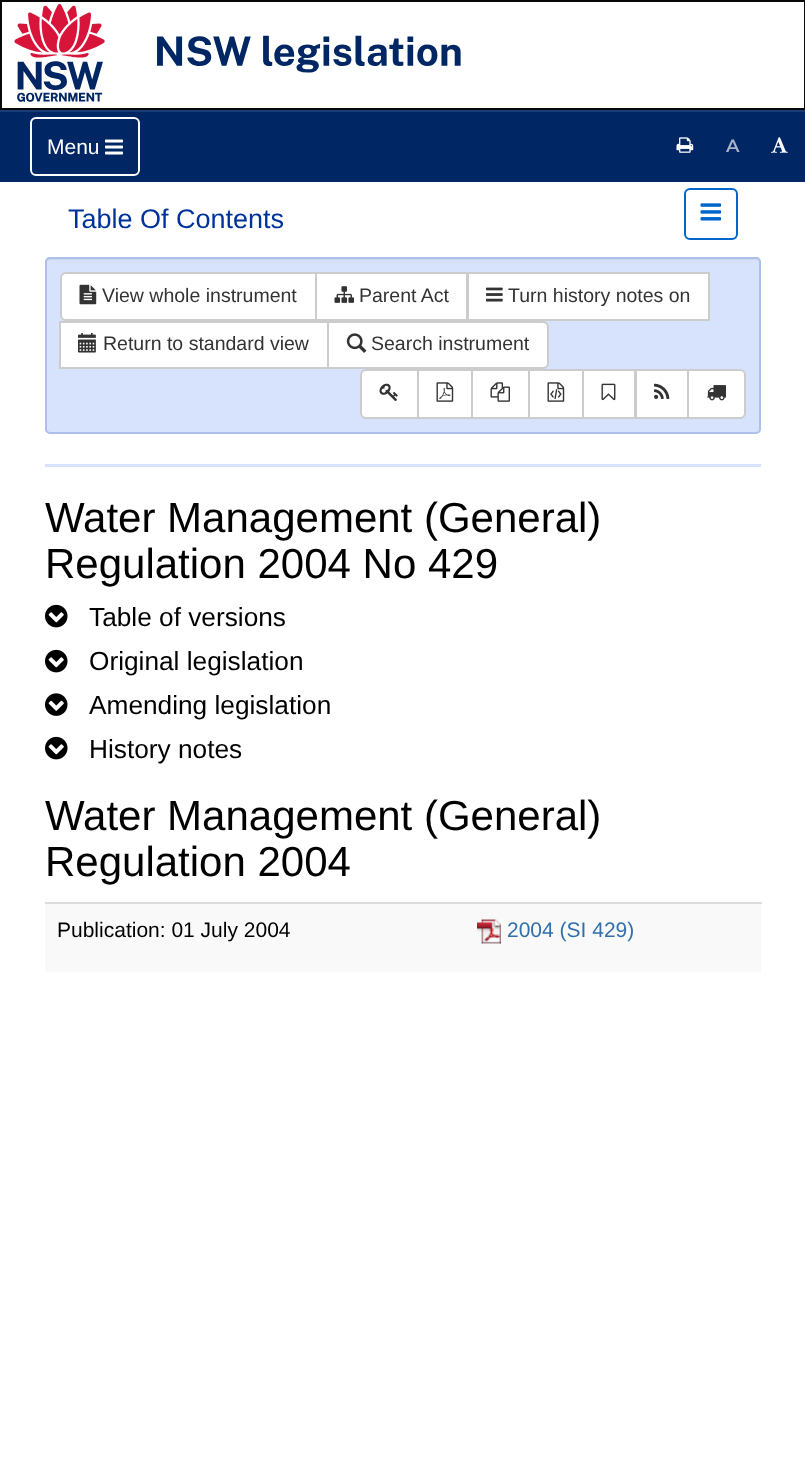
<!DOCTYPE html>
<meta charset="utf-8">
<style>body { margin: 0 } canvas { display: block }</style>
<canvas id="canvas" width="805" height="1465"></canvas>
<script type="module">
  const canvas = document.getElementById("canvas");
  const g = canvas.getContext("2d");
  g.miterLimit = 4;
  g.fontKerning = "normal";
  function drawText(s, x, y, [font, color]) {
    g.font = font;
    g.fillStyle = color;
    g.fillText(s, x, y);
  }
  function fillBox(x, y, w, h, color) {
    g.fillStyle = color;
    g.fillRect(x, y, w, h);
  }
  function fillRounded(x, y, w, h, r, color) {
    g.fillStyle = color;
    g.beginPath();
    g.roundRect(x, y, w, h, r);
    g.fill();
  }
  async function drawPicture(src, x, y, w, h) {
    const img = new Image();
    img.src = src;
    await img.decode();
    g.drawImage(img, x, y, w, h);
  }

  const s1 = ["21px Liberation Sans", "#FFFFFF"];
  const s2 = ["600 18px Montserrat", "#A6B3C9"];
  const s3 = ["27px Liberation Sans", "#003399"];
  const s4 = ["19.5px Liberation Sans", "#333333"];
  const s5 = ["42px Liberation Sans", "#000000"];
  const s6 = ["26.25px Liberation Sans", "#000000"];
  const s7 = ["21px Liberation Sans", "#000000"];
  const s8 = ["21px Liberation Sans", "#3170AB"];

  fillBox(0, 0, 805, 1465, "#FFFFFF");
  g.strokeStyle = "#080808";
  g.lineWidth = 2;
  g.strokeRect(1, 1, 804, 108);
  await drawPicture("pic1.png", 14, 4, 447, 98);
  fillBox(0, 112, 805, 70, "#002664");
  fillBox(0, 110, 805, 2, "#1A3C74");
  g.beginPath();
  g.roundRect(31, 118, 108, 57, 5);
  g.strokeStyle = "#FFFFFF";
  g.stroke();
  drawText("Menu", 47, 154, s1);
  await drawPicture("pic2.png", 105, 139, 18, 16);
  await drawPicture("pic3.png", 676, 137, 18, 16);
  g.letterSpacing = "1px";
  drawText("A", 726, 152, s2);
  await drawPicture("pic4.png", 771, 137, 17, 16);
  g.letterSpacing = "0px";
  drawText("Table Of Contents", 68, 228, s3);
  g.beginPath();
  g.roundRect(685, 189, 52, 50, 5);
  g.strokeStyle = "#0066CC";
  g.stroke();
  await drawPicture("pic5.png", 700, 203, 22, 18);
  fillRounded(45, 257, 716, 177, 5, "#D7E2FC");
  g.fillStyle = "#CCD7EF";
  g.beginPath();
  g.moveTo(50, 260);
  g.lineTo(756, 260);
  g.bezierCurveTo(758, 260, 759, 261, 759, 262);
  g.lineTo(759, 261);
  g.bezierCurveTo(759, 259, 758, 258, 756, 258);
  g.lineTo(50, 258);
  g.bezierCurveTo(48, 258, 47, 259, 47, 261);
  g.closePath();
  g.fill();
  g.beginPath();
  g.roundRect(46, 258, 714, 175, 4);
  g.strokeStyle = "#AEBFE9";
  g.stroke();
  g.fillStyle = "#FFFFFF";
  g.beginPath();
  g.roundRect(61, 273, 255, 47, [5, 0, 0, 5]);
  g.fill();
  g.strokeStyle = "#CCCCCC";
  g.stroke();
  await drawPicture("pic6.png", 79, 284, 18, 21);
  drawText("View whole instrument", 102, 302, s4);
  g.fillStyle = "#FFFFFF";
  g.beginPath();
  g.rect(316, 273, 151, 47);
  g.fill();
  g.stroke();
  await drawPicture("pic7.png", 334, 286, 20, 17);
  drawText("Parent Act", 359, 302, s4);
  g.fillStyle = "#FFFFFF";
  g.beginPath();
  g.rect(468, 273, 241, 47);
  g.fill();
  g.stroke();
  await drawPicture("pic8.png", 486, 287, 17, 15);
  drawText("Turn history notes on", 508, 302, s4);
  g.fillStyle = "#FFFFFF";
  g.beginPath();
  g.rect(60, 322, 268, 46);
  g.fill();
  g.stroke();
  await drawPicture("pic9.png", 78, 333, 18, 20);
  drawText("Return to standard view", 103, 350, s4);
  g.fillStyle = "#FFFFFF";
  g.beginPath();
  g.roundRect(328, 322, 220, 46, [0, 5, 5, 0]);
  g.fill();
  g.stroke();
  await drawPicture("pic10.png", 346, 333, 21, 20);
  drawText("Search instrument", 371, 350, s4);
  g.fillStyle = "#FFFFFF";
  g.beginPath();
  g.roundRect(361, 370, 57, 48, [5, 0, 0, 5]);
  g.fill();
  g.stroke();
  await drawPicture("pic11.png", 379, 383, 19, 18);
  g.beginPath();
  g.rect(418, 370, 54, 48);
  g.fill();
  g.stroke();
  await drawPicture("pic12.png", 436, 382, 18, 20);
  g.beginPath();
  g.rect(472, 370, 57, 48);
  g.fill();
  g.stroke();
  await drawPicture("pic13.png", 490, 382, 20, 20);
  g.beginPath();
  g.rect(529, 370, 54, 48);
  g.fill();
  g.stroke();
  await drawPicture("pic14.png", 547, 382, 18, 20);
  g.beginPath();
  g.rect(583, 370, 52, 48);
  g.fill();
  g.stroke();
  await drawPicture("pic15.png", 601, 383, 15, 18);
  g.beginPath();
  g.rect(636, 370, 52, 48);
  g.fill();
  g.stroke();
  await drawPicture("pic16.png", 654, 383, 16, 16);
  g.beginPath();
  g.roundRect(688, 370, 57, 48, [0, 5, 5, 0]);
  g.fill();
  g.stroke();
  await drawPicture("pic17.png", 707, 385, 19, 16);
  fillBox(45, 464, 716, 3, "#D7E2FC");
  drawText("Water Management (General)", 45, 532, s5);
  drawText("Regulation 2004 No 429", 45, 578, s5);
  await drawPicture("pic18.png", 45, 604, 23, 24);
  drawText("Table of versions", 89, 626, s6);
  await drawPicture("pic18.png", 45, 649, 23, 24);
  drawText("Original legislation", 89, 670, s6);
  await drawPicture("pic19.png", 45, 693, 23, 23);
  drawText("Amending legislation", 89, 714, s6);
  await drawPicture("pic18.png", 45, 736, 23, 24);
  drawText("History notes", 89, 758, s6);
  drawText("Water Management (General)", 45, 830, s5);
  drawText("Regulation 2004", 45, 876, s5);
  fillBox(45, 904, 716, 68, "#F9F9F9");
  drawText("Publication: 01 July 2004", 57, 937, s7);
  fillBox(45, 902, 717, 2, "#DDDDDD");
  await drawPicture("pic20.png", 477, 919, 24, 25);
  drawText("2004 (SI 429)", 507, 937, s8);
</script>
